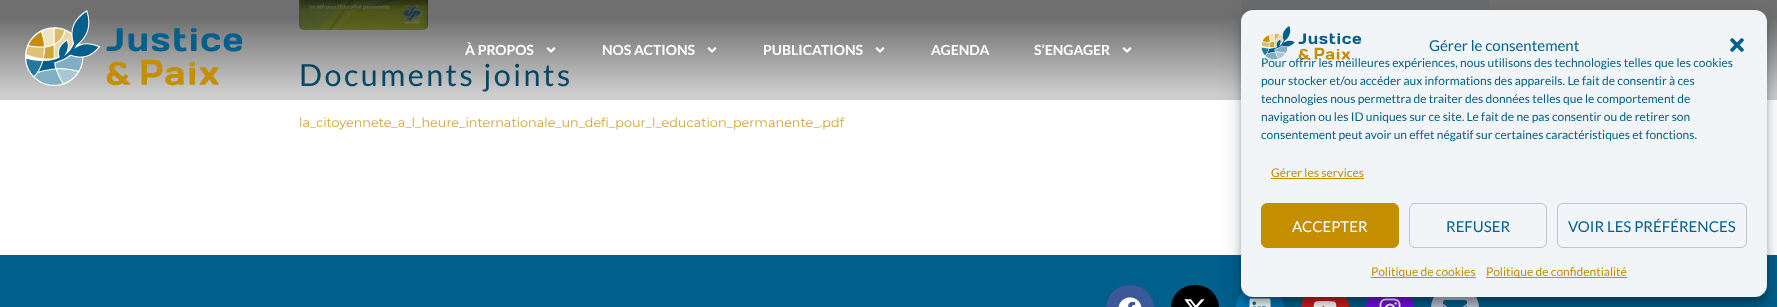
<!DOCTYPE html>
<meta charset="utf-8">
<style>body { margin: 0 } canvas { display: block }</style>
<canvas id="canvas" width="1777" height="307"></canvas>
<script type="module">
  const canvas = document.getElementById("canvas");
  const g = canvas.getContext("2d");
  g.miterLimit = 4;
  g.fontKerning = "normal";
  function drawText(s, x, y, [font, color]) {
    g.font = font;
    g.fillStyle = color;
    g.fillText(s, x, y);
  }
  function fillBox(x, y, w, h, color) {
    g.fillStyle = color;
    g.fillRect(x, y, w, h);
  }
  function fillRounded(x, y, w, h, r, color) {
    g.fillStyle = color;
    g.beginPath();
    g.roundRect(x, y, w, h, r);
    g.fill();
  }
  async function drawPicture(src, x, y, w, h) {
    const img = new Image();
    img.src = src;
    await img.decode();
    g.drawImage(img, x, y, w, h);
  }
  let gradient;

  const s1 = ["30.5px Lato", "#005F8B"];
  const s2 = ["bold 14px Lato", "#FFFFFF"];
  const s3 = ["15px Lato", "#005F8B"];
  const s4 = ["12px Lato", "#005F8B"];
  const s5 = ["12px Lato", "#C48E00"];
  const s6 = ["15px Lato", "#FFFFFF"];
  const s7 = ["12.8px Montserrat", "#D0A533"];

  fillBox(0, 0, 1777, 307, "#FFFFFF");
  fillBox(1242, 0, 247, 18, "#F2F5F7");
  await drawPicture("pic5.png", 299, 0, 129, 30);
  g.letterSpacing = "2.5px";
  drawText("Documents joints", 299, 86, s1);
  gradient = g.createLinearGradient(889, 0, 889, 100);
  gradient.addColorStop(0.17, "rgba(2, 1, 1, 0.57)");
  gradient.addColorStop(0.94, "rgba(5, 5, 5, 0.2)");
  g.fillStyle = gradient;
  g.fillRect(0, 0, 1777, 100);
  await drawPicture("pic1.png", 25, 10, 217, 76);
  g.letterSpacing = "0px";
  drawText("À PROPOS", 465, 55, s2);
  await drawPicture("pic2.png", 546, 47, 10, 6);
  drawText("NOS ACTIONS", 602, 55, s2);
  await drawPicture("pic2.png", 707, 47, 10, 6);
  drawText("PUBLICATIONS", 763, 55, s2);
  await drawPicture("pic2.png", 875, 47, 10, 6);
  drawText("AGENDA", 931, 55, s2);
  drawText("S’ENGAGER", 1034, 55, s2);
  await drawPicture("pic2.png", 1122, 47, 10, 6);
  fillBox(0, 255, 1777, 52, "#005F8B");
  fillRounded(1236, 285, 48, 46, 24, "#0077B5");
  await drawPicture("pic8.png", 1249, 298, 22, 9);
  fillRounded(1301, 285, 48, 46, 24, "#CD201F");
  await drawPicture("pic9.png", 1313, 301, 24, 6);
  fillRounded(1366, 285, 48, 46, 24, "#7610E8");
  await drawPicture("pic10.png", 1379, 298, 22, 9);
  fillRounded(1431, 285, 48, 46, 24, "#BDC3D8");
  await drawPicture("pic11.png", 1443, 300, 24, 7);
  g.fillStyle = "rgba(0, 0, 0, 0.23)";
  g.filter = "blur(3px)";
  g.beginPath();
  g.roundRect(1241, 16, 526, 287, 12);
  g.fill();
  g.filter = "none";
  fillRounded(1171, 285, 48, 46, 24, "#000000");
  g.fillStyle = "rgba(0, 0, 0, 0.19)";
  g.filter = "blur(10px)";
  g.beginPath();
  g.roundRect(1241, 20, 526, 287, 12);
  g.fill();
  g.filter = "none";
  fillRounded(1241, 10, 526, 287, 12, "#F2F5F7");
  await drawPicture("pic3.png", 1261, 25, 100, 35);
  drawText("Gérer le consentement", 1429, 51, s3);
  await drawPicture("pic4.png", 1730, 38, 14, 14);
  drawText("Pour offrir les meilleures expériences, nous utilisons des technologies telles que les cookies", 1261, 67, s4);
  drawText("pour stocker et/ou accéder aux informations des appareils. Le fait de consentir à ces", 1261, 85, s4);
  drawText("technologies nous permettra de traiter des données telles que le comportement de", 1261, 103, s4);
  drawText("navigation ou les ID uniques sur ce site. Le fait de ne pas consentir ou de retirer son", 1261, 121, s4);
  drawText("consentement peut avoir un effet négatif sur certaines caractéristiques et fonctions.", 1261, 139, s4);
  drawText("Gérer les services", 1271, 177, s5);
  fillBox(1271, 178, 93, 1, "#C48E00");
  g.beginPath();
  g.roundRect(1261.5, 203.5, 137, 44, 5.5);
  g.fill();
  g.strokeStyle = "#C48E00";
  g.stroke();
  drawText("ACCEPTER", 1292, 232, s6);
  g.beginPath();
  g.roundRect(1409.5, 203.5, 137, 44, 5.5);
  g.strokeStyle = "#BDC3D8";
  g.stroke();
  drawText("REFUSER", 1446, 232, s3);
  g.beginPath();
  g.roundRect(1557.5, 203.5, 189, 44, 5.5);
  g.stroke();
  drawText("VOIR LES PRÉFÉRENCES", 1568, 232, s3);
  fillBox(1371, 277, 105, 1, "#C48E00");
  drawText("Politique de cookies", 1371, 276, s5);
  fillBox(1486, 277, 141, 1, "#C48E00");
  drawText("Politique de confidentialité", 1486, 276, s5);
  drawText("la_citoyennete_a_l_heure_internationale_un_defi_pour_l_education_permanente_.pdf", 299, 127, s7);
  fillRounded(1106, 285, 48, 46, 24, "#3B5998");
  await drawPicture("pic6.png", 1118, 297, 24, 10);
  await drawPicture("pic7.png", 1184, 299, 21, 8);
</script>
